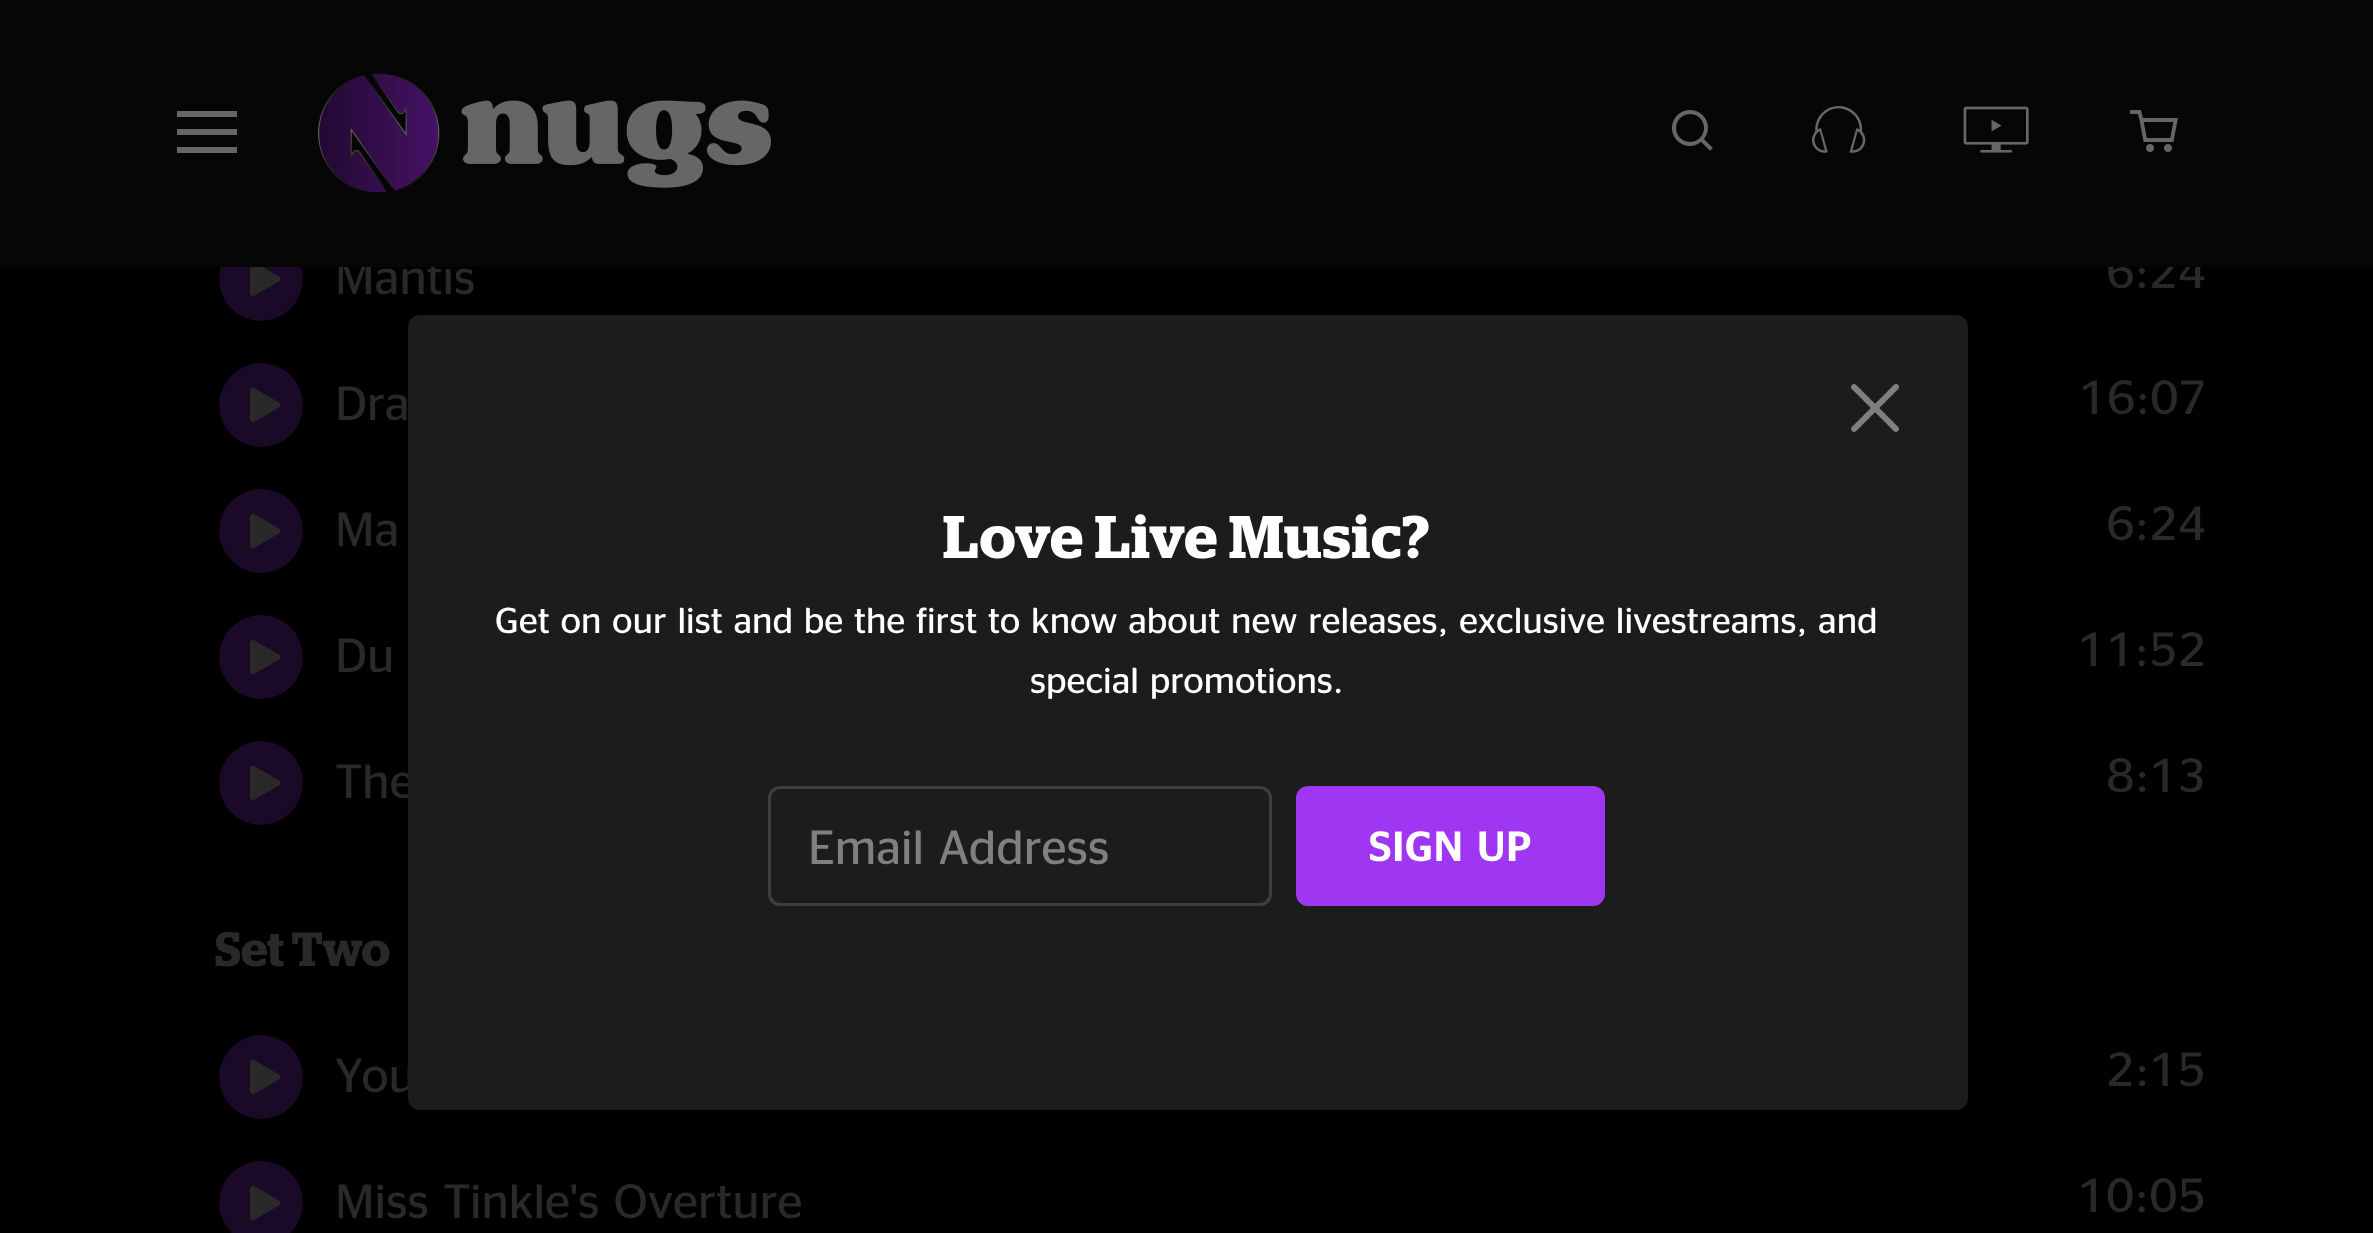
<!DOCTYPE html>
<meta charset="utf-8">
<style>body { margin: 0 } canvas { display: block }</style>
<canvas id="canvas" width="2373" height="1233"></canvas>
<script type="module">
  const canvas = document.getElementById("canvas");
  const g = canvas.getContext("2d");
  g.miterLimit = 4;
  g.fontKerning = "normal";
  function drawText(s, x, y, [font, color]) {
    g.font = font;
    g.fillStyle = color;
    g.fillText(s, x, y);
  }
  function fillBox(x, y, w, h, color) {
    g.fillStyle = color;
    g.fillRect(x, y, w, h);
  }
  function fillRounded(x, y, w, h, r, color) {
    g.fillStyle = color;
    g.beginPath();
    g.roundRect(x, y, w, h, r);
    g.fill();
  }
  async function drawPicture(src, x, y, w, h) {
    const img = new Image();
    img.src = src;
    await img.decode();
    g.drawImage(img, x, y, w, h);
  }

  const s1 = ["48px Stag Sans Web", "#292929"];
  const s2 = ["600 48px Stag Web", "#292929"];
  const s3 = ["600 60px Stag Web", "#FFFFFF"];
  const s4 = ["36px Stag Sans Web", "#FFFFFF"];
  const s5 = ["48px Stag Sans Web", "#808080"];
  const s6 = ["500 42px Stag Sans Web", "#FFFFFF"];

  fillBox(0, 0, 2373, 1233, "#000000");
  g.fillStyle = "#1A0927";
  g.beginPath();
  g.arc(261, 279, 42, 0, Math.PI * 2);
  g.fill();
  g.fillStyle = "#292929";
  g.beginPath();
  g.moveTo(279, 276.5);
  g.bezierCurveTo(281, 277.5, 281, 280.5, 279, 281.5);
  g.lineTo(254, 296);
  g.bezierCurveTo(252.5, 297, 250, 295.5, 250, 293.5);
  g.lineTo(250, 264.5);
  g.bezierCurveTo(250, 262.5, 252.5, 261, 254, 262);
  g.closePath();
  g.fill();
  drawText("Mantis", 335, 294, s1);
  drawText("6:24", 2106, 288, s1);
  fillBox(0, 0, 2373, 267, "#060606");
  g.fillStyle = "#666666";
  g.beginPath();
  g.moveTo(177, 111);
  g.lineTo(177, 117);
  g.lineTo(237, 117);
  g.lineTo(237, 111);
  g.closePath();
  g.moveTo(177, 129);
  g.lineTo(177, 135);
  g.lineTo(237, 135);
  g.lineTo(237, 129);
  g.closePath();
  g.moveTo(177, 147);
  g.lineTo(177, 153);
  g.lineTo(237, 153);
  g.lineTo(237, 147);
  g.closePath();
  g.fill();
  await drawPicture("pic1.png", 318, 73, 453, 119);
  await drawPicture("pic2.png", 1672, 110, 41, 41);
  await drawPicture("pic3.png", 1812, 106, 54, 47);
  await drawPicture("pic4.png", 1963, 106, 66, 47);
  await drawPicture("pic5.png", 2130, 110, 48, 42);
  g.fillStyle = "#1A0927";
  g.beginPath();
  g.arc(261, 405, 42, 0, Math.PI * 2);
  g.fill();
  g.fillStyle = "#292929";
  g.beginPath();
  g.moveTo(279, 402.5);
  g.bezierCurveTo(281, 403.5, 281, 406.5, 279, 407.5);
  g.lineTo(254, 422);
  g.bezierCurveTo(252.5, 423, 250, 421.5, 250, 419.5);
  g.lineTo(250, 390.5);
  g.bezierCurveTo(250, 388.5, 252.5, 387, 254, 388);
  g.closePath();
  g.fill();
  drawText("Dra", 335, 420, s1);
  drawText("16:07", 2078, 414, s1);
  g.fillStyle = "#1A0927";
  g.beginPath();
  g.arc(261, 531, 42, 0, Math.PI * 2);
  g.fill();
  g.fillStyle = "#292929";
  g.beginPath();
  g.moveTo(279, 528.5);
  g.bezierCurveTo(281, 529.5, 281, 532.5, 279, 533.5);
  g.lineTo(254, 548);
  g.bezierCurveTo(252.5, 549, 250, 547.5, 250, 545.5);
  g.lineTo(250, 516.5);
  g.bezierCurveTo(250, 514.5, 252.5, 513, 254, 514);
  g.closePath();
  g.fill();
  drawText("Ma", 335, 546, s1);
  drawText("6:24", 2106, 540, s1);
  g.fillStyle = "#1A0927";
  g.beginPath();
  g.arc(261, 657, 42, 0, Math.PI * 2);
  g.fill();
  g.fillStyle = "#292929";
  g.beginPath();
  g.moveTo(279, 654.5);
  g.bezierCurveTo(281, 655.5, 281, 658.5, 279, 659.5);
  g.lineTo(254, 674);
  g.bezierCurveTo(252.5, 675, 250, 673.5, 250, 671.5);
  g.lineTo(250, 642.5);
  g.bezierCurveTo(250, 640.5, 252.5, 639, 254, 640);
  g.closePath();
  g.fill();
  drawText("Du", 335, 672, s1);
  drawText("11:52", 2077, 666, s1);
  g.fillStyle = "#1A0927";
  g.beginPath();
  g.arc(261, 783, 42, 0, Math.PI * 2);
  g.fill();
  g.fillStyle = "#292929";
  g.beginPath();
  g.moveTo(279, 780.5);
  g.bezierCurveTo(281, 781.5, 281, 784.5, 279, 785.5);
  g.lineTo(254, 800);
  g.bezierCurveTo(252.5, 801, 250, 799.5, 250, 797.5);
  g.lineTo(250, 768.5);
  g.bezierCurveTo(250, 766.5, 252.5, 765, 254, 766);
  g.closePath();
  g.fill();
  drawText("The", 335, 798, s1);
  drawText("8:13", 2106, 792, s1);
  drawText("Set Two", 215, 966, s2);
  g.fillStyle = "#1A0927";
  g.beginPath();
  g.arc(261, 1077, 42, 0, Math.PI * 2);
  g.fill();
  g.fillStyle = "#292929";
  g.beginPath();
  g.moveTo(279, 1074.5);
  g.bezierCurveTo(281, 1075.5, 281, 1078.5, 279, 1079.5);
  g.lineTo(254, 1094);
  g.bezierCurveTo(252.5, 1095, 250, 1093.5, 250, 1091.5);
  g.lineTo(250, 1062.5);
  g.bezierCurveTo(250, 1060.5, 252.5, 1059, 254, 1060);
  g.closePath();
  g.fill();
  drawText("You", 335, 1092, s1);
  drawText("2:15", 2106, 1086, s1);
  g.fillStyle = "#1A0927";
  g.beginPath();
  g.arc(261, 1203, 42, 0, Math.PI * 2);
  g.fill();
  g.fillStyle = "#292929";
  g.beginPath();
  g.moveTo(279, 1200.5);
  g.bezierCurveTo(281, 1201.5, 281, 1204.5, 279, 1205.5);
  g.lineTo(254, 1220);
  g.bezierCurveTo(252.5, 1221, 250, 1219.5, 250, 1217.5);
  g.lineTo(250, 1188.5);
  g.bezierCurveTo(250, 1186.5, 252.5, 1185, 254, 1186);
  g.closePath();
  g.fill();
  drawText("Miss Tinkle's Overture", 335, 1218, s1);
  drawText("10:05", 2077, 1212, s1);
  g.fillStyle = "#1C1C1C";
  g.beginPath();
  g.roundRect(408, 315, 1560, 120, [12, 12, 0, 0]);
  g.fill();
  await drawPicture("pic6.png", 1851, 384, 48, 48);
  fillBox(408, 435, 1560, 603, "#1C1C1C");
  g.letterSpacing = "1.25px";
  drawText("Love Live Music?", 943, 558, s3);
  g.letterSpacing = "0px";
  drawText("Get on our list and be the first to know about new releases, exclusive livestreams, and", 495, 633, s4);
  drawText("special promotions.", 1030, 693, s4);
  g.beginPath();
  g.roundRect(769.5, 787.5, 501, 117, 10.5);
  g.strokeStyle = "#3E3E3E";
  g.lineWidth = 3;
  g.stroke();
  drawText("Email Address", 808, 864, s5);
  fillRounded(1296, 786, 309, 120, 12, "#9F37F2");
  g.letterSpacing = "0.75px";
  drawText("SIGN UP", 1369, 861, s6);
  g.fillStyle = "#1C1C1C";
  g.beginPath();
  g.roundRect(408, 1038, 1560, 72, [0, 0, 12, 12]);
  g.fill();
</script>
